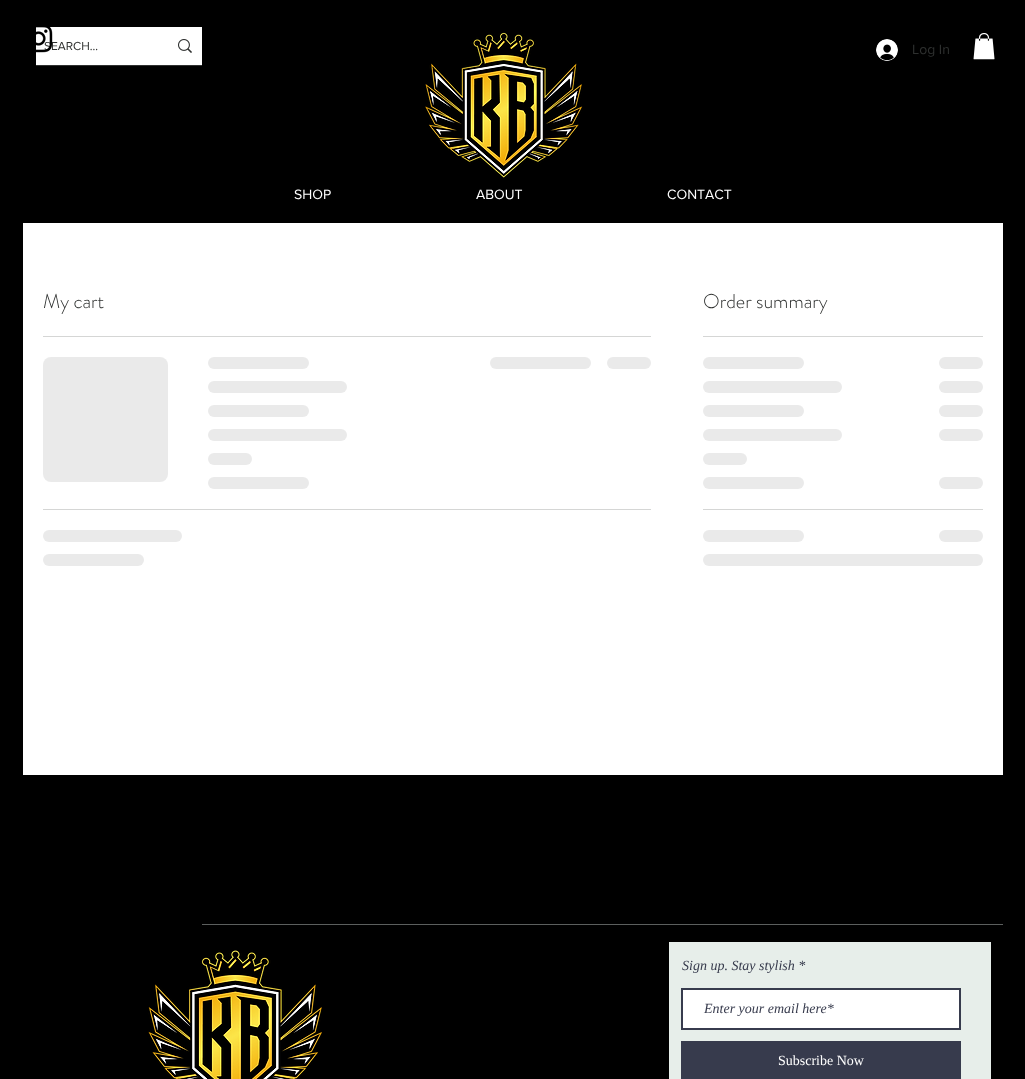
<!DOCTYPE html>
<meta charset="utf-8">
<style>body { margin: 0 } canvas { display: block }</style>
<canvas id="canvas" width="1025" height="1079"></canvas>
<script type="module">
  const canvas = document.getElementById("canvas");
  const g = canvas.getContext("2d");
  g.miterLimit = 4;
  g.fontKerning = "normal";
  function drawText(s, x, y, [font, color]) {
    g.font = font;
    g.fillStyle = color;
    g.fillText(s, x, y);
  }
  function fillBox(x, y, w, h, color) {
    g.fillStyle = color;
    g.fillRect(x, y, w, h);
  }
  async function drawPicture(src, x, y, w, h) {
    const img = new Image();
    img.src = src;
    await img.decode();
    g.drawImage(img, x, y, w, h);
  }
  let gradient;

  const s1 = ["12px 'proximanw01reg'", "#2E302F"];
  const s2 = ["14px 'proximanw01reg'", "#2E302F"];
  const s3 = ["14px 'proximanw01reg'", "#FFFFFF"];
  const s4 = ["300 20px 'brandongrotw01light'", "#2E302F"];
  const s5 = ["italic 14px Liberation Serif", "#373B4D"];
  const s6 = ["14px Liberation Serif", "#FFFFFF"];

  fillBox(0, 0, 1025, 1079, "#000000");
  fillBox(36, 27, 166, 38, "#FFFFFF");
  drawText("SEARCH...", 44, 50, s1);
  await drawPicture("pic1.png", 36, 27, 17, 26);
  fillBox(36, 65, 166, 1, "#2E302F");
  await drawPicture("pic2.png", 178, 39, 14, 14);
  await drawPicture("pic3.png", 425, 32, 158, 146);
  await drawPicture("pic4.png", 876, 39, 22, 22);
  drawText("Log In", 912, 54, s2);
  await drawPicture("pic5.png", 973, 33, 22, 27);
  drawText("SHOP", 294, 199, s3);
  drawText("ABOUT", 476, 199, s3);
  drawText("CONTACT", 667, 199, s3);
  fillBox(23, 223, 980, 552, "#FFFFFF");
  fillBox(43, 336, 608, 1, "#D5D6D5");
  drawText("My cart", 43, 308, s4);
  gradient = g.createLinearGradient(43, 420, 543, 420);
  gradient.addColorStop(0.25, "#EAEAEA");
  gradient.addColorStop(0.37, "#D5D6D5");
  gradient.addColorStop(0.63, "#EAEAEA");
  g.fillStyle = gradient;
  g.beginPath();
  g.roundRect(43, 357, 125, 125, 8);
  g.fill();
  gradient = g.createLinearGradient(208, 363, 612, 363);
  gradient.addColorStop(0.25, "#EAEAEA");
  gradient.addColorStop(0.37, "#D5D6D5");
  gradient.addColorStop(0.63, "#EAEAEA");
  g.fillStyle = gradient;
  g.beginPath();
  g.roundRect(208, 357, 101, 12, 6);
  g.fill();
  gradient = g.createLinearGradient(208, 387, 764, 387);
  gradient.addColorStop(0.25, "#EAEAEA");
  gradient.addColorStop(0.37, "#D5D6D5");
  gradient.addColorStop(0.63, "#EAEAEA");
  g.fillStyle = gradient;
  g.beginPath();
  g.roundRect(208, 381, 139, 12, 6);
  g.fill();
  gradient = g.createLinearGradient(208, 411, 612, 411);
  gradient.addColorStop(0.25, "#EAEAEA");
  gradient.addColorStop(0.37, "#D5D6D5");
  gradient.addColorStop(0.63, "#EAEAEA");
  g.fillStyle = gradient;
  g.beginPath();
  g.roundRect(208, 405, 101, 12, 6);
  g.fill();
  gradient = g.createLinearGradient(208, 435, 764, 435);
  gradient.addColorStop(0.25, "#EAEAEA");
  gradient.addColorStop(0.37, "#D5D6D5");
  gradient.addColorStop(0.63, "#EAEAEA");
  g.fillStyle = gradient;
  g.beginPath();
  g.roundRect(208, 429, 139, 12, 6);
  g.fill();
  gradient = g.createLinearGradient(208, 459, 384, 459);
  gradient.addColorStop(0.25, "#EAEAEA");
  gradient.addColorStop(0.37, "#D5D6D5");
  gradient.addColorStop(0.63, "#EAEAEA");
  g.fillStyle = gradient;
  g.beginPath();
  g.roundRect(208, 453, 44, 12, 6);
  g.fill();
  gradient = g.createLinearGradient(208, 483, 612, 483);
  gradient.addColorStop(0.25, "#EAEAEA");
  gradient.addColorStop(0.37, "#D5D6D5");
  gradient.addColorStop(0.63, "#EAEAEA");
  g.fillStyle = gradient;
  g.beginPath();
  g.roundRect(208, 477, 101, 12, 6);
  g.fill();
  gradient = g.createLinearGradient(490, 363, 894, 363);
  gradient.addColorStop(0.25, "#EAEAEA");
  gradient.addColorStop(0.37, "#D5D6D5");
  gradient.addColorStop(0.63, "#EAEAEA");
  g.fillStyle = gradient;
  g.beginPath();
  g.roundRect(490, 357, 101, 12, 6);
  g.fill();
  gradient = g.createLinearGradient(607, 363, 783, 363);
  gradient.addColorStop(0.25, "#EAEAEA");
  gradient.addColorStop(0.37, "#D5D6D5");
  gradient.addColorStop(0.63, "#EAEAEA");
  g.fillStyle = gradient;
  g.beginPath();
  g.roundRect(607, 357, 44, 12, 6);
  g.fill();
  fillBox(43, 509, 608, 1, "#D5D6D5");
  gradient = g.createLinearGradient(43, 536, 599, 536);
  gradient.addColorStop(0.25, "#EAEAEA");
  gradient.addColorStop(0.37, "#D5D6D5");
  gradient.addColorStop(0.63, "#EAEAEA");
  g.fillStyle = gradient;
  g.beginPath();
  g.roundRect(43, 530, 139, 12, 6);
  g.fill();
  gradient = g.createLinearGradient(43, 560, 447, 560);
  gradient.addColorStop(0.25, "#EAEAEA");
  gradient.addColorStop(0.37, "#D5D6D5");
  gradient.addColorStop(0.63, "#EAEAEA");
  g.fillStyle = gradient;
  g.beginPath();
  g.roundRect(43, 554, 101, 12, 6);
  g.fill();
  fillBox(703, 336, 280, 1, "#D5D6D5");
  drawText("Order summary", 703, 308, s4);
  gradient = g.createLinearGradient(703, 363, 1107, 363);
  gradient.addColorStop(0.25, "#EAEAEA");
  gradient.addColorStop(0.37, "#D5D6D5");
  gradient.addColorStop(0.63, "#EAEAEA");
  g.fillStyle = gradient;
  g.beginPath();
  g.roundRect(703, 357, 101, 12, 6);
  g.fill();
  gradient = g.createLinearGradient(939, 363, 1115, 363);
  gradient.addColorStop(0.25, "#EAEAEA");
  gradient.addColorStop(0.37, "#D5D6D5");
  gradient.addColorStop(0.63, "#EAEAEA");
  g.fillStyle = gradient;
  g.beginPath();
  g.roundRect(939, 357, 44, 12, 6);
  g.fill();
  gradient = g.createLinearGradient(703, 387, 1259, 387);
  gradient.addColorStop(0.25, "#EAEAEA");
  gradient.addColorStop(0.37, "#D5D6D5");
  gradient.addColorStop(0.63, "#EAEAEA");
  g.fillStyle = gradient;
  g.beginPath();
  g.roundRect(703, 381, 139, 12, 6);
  g.fill();
  gradient = g.createLinearGradient(939, 387, 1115, 387);
  gradient.addColorStop(0.25, "#EAEAEA");
  gradient.addColorStop(0.37, "#D5D6D5");
  gradient.addColorStop(0.63, "#EAEAEA");
  g.fillStyle = gradient;
  g.beginPath();
  g.roundRect(939, 381, 44, 12, 6);
  g.fill();
  gradient = g.createLinearGradient(703, 411, 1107, 411);
  gradient.addColorStop(0.25, "#EAEAEA");
  gradient.addColorStop(0.37, "#D5D6D5");
  gradient.addColorStop(0.63, "#EAEAEA");
  g.fillStyle = gradient;
  g.beginPath();
  g.roundRect(703, 405, 101, 12, 6);
  g.fill();
  gradient = g.createLinearGradient(939, 411, 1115, 411);
  gradient.addColorStop(0.25, "#EAEAEA");
  gradient.addColorStop(0.37, "#D5D6D5");
  gradient.addColorStop(0.63, "#EAEAEA");
  g.fillStyle = gradient;
  g.beginPath();
  g.roundRect(939, 405, 44, 12, 6);
  g.fill();
  gradient = g.createLinearGradient(703, 435, 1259, 435);
  gradient.addColorStop(0.25, "#EAEAEA");
  gradient.addColorStop(0.37, "#D5D6D5");
  gradient.addColorStop(0.63, "#EAEAEA");
  g.fillStyle = gradient;
  g.beginPath();
  g.roundRect(703, 429, 139, 12, 6);
  g.fill();
  gradient = g.createLinearGradient(939, 435, 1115, 435);
  gradient.addColorStop(0.25, "#EAEAEA");
  gradient.addColorStop(0.37, "#D5D6D5");
  gradient.addColorStop(0.63, "#EAEAEA");
  g.fillStyle = gradient;
  g.beginPath();
  g.roundRect(939, 429, 44, 12, 6);
  g.fill();
  gradient = g.createLinearGradient(703, 459, 879, 459);
  gradient.addColorStop(0.25, "#EAEAEA");
  gradient.addColorStop(0.37, "#D5D6D5");
  gradient.addColorStop(0.63, "#EAEAEA");
  g.fillStyle = gradient;
  g.beginPath();
  g.roundRect(703, 453, 44, 12, 6);
  g.fill();
  gradient = g.createLinearGradient(703, 483, 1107, 483);
  gradient.addColorStop(0.25, "#EAEAEA");
  gradient.addColorStop(0.37, "#D5D6D5");
  gradient.addColorStop(0.63, "#EAEAEA");
  g.fillStyle = gradient;
  g.beginPath();
  g.roundRect(703, 477, 101, 12, 6);
  g.fill();
  gradient = g.createLinearGradient(939, 483, 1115, 483);
  gradient.addColorStop(0.25, "#EAEAEA");
  gradient.addColorStop(0.37, "#D5D6D5");
  gradient.addColorStop(0.63, "#EAEAEA");
  g.fillStyle = gradient;
  g.beginPath();
  g.roundRect(939, 477, 44, 12, 6);
  g.fill();
  fillBox(703, 509, 280, 1, "#D5D6D5");
  gradient = g.createLinearGradient(703, 536, 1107, 536);
  gradient.addColorStop(0.25, "#EAEAEA");
  gradient.addColorStop(0.37, "#D5D6D5");
  gradient.addColorStop(0.63, "#EAEAEA");
  g.fillStyle = gradient;
  g.beginPath();
  g.roundRect(703, 530, 101, 12, 6);
  g.fill();
  gradient = g.createLinearGradient(939, 536, 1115, 536);
  gradient.addColorStop(0.25, "#EAEAEA");
  gradient.addColorStop(0.37, "#D5D6D5");
  gradient.addColorStop(0.63, "#EAEAEA");
  g.fillStyle = gradient;
  g.beginPath();
  g.roundRect(939, 530, 44, 12, 6);
  g.fill();
  gradient = g.createLinearGradient(703, 560, 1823, 560);
  gradient.addColorStop(0.25, "#EAEAEA");
  gradient.addColorStop(0.37, "#D5D6D5");
  gradient.addColorStop(0.63, "#EAEAEA");
  g.fillStyle = gradient;
  g.beginPath();
  g.roundRect(703, 554, 280, 12, 6);
  g.fill();
  fillBox(202, 924, 801, 1, "#5C5F5E");
  await drawPicture("pic6.png", 148, 950, 174, 129);
  fillBox(669, 942, 322, 137, "#E7EEEA");
  drawText("Sign up. Stay stylish *", 682, 970, s5);
  g.fillStyle = "#FFFFFF";
  g.beginPath();
  g.rect(682, 989, 278, 40);
  g.fill();
  g.strokeStyle = "#373B4D";
  g.lineWidth = 2;
  g.stroke();
  drawText("Enter your email here*", 704, 1013, s5);
  fillBox(681, 1041, 280, 38, "#373B4D");
  drawText("Subscribe Now", 778, 1065, s6);
</script>
